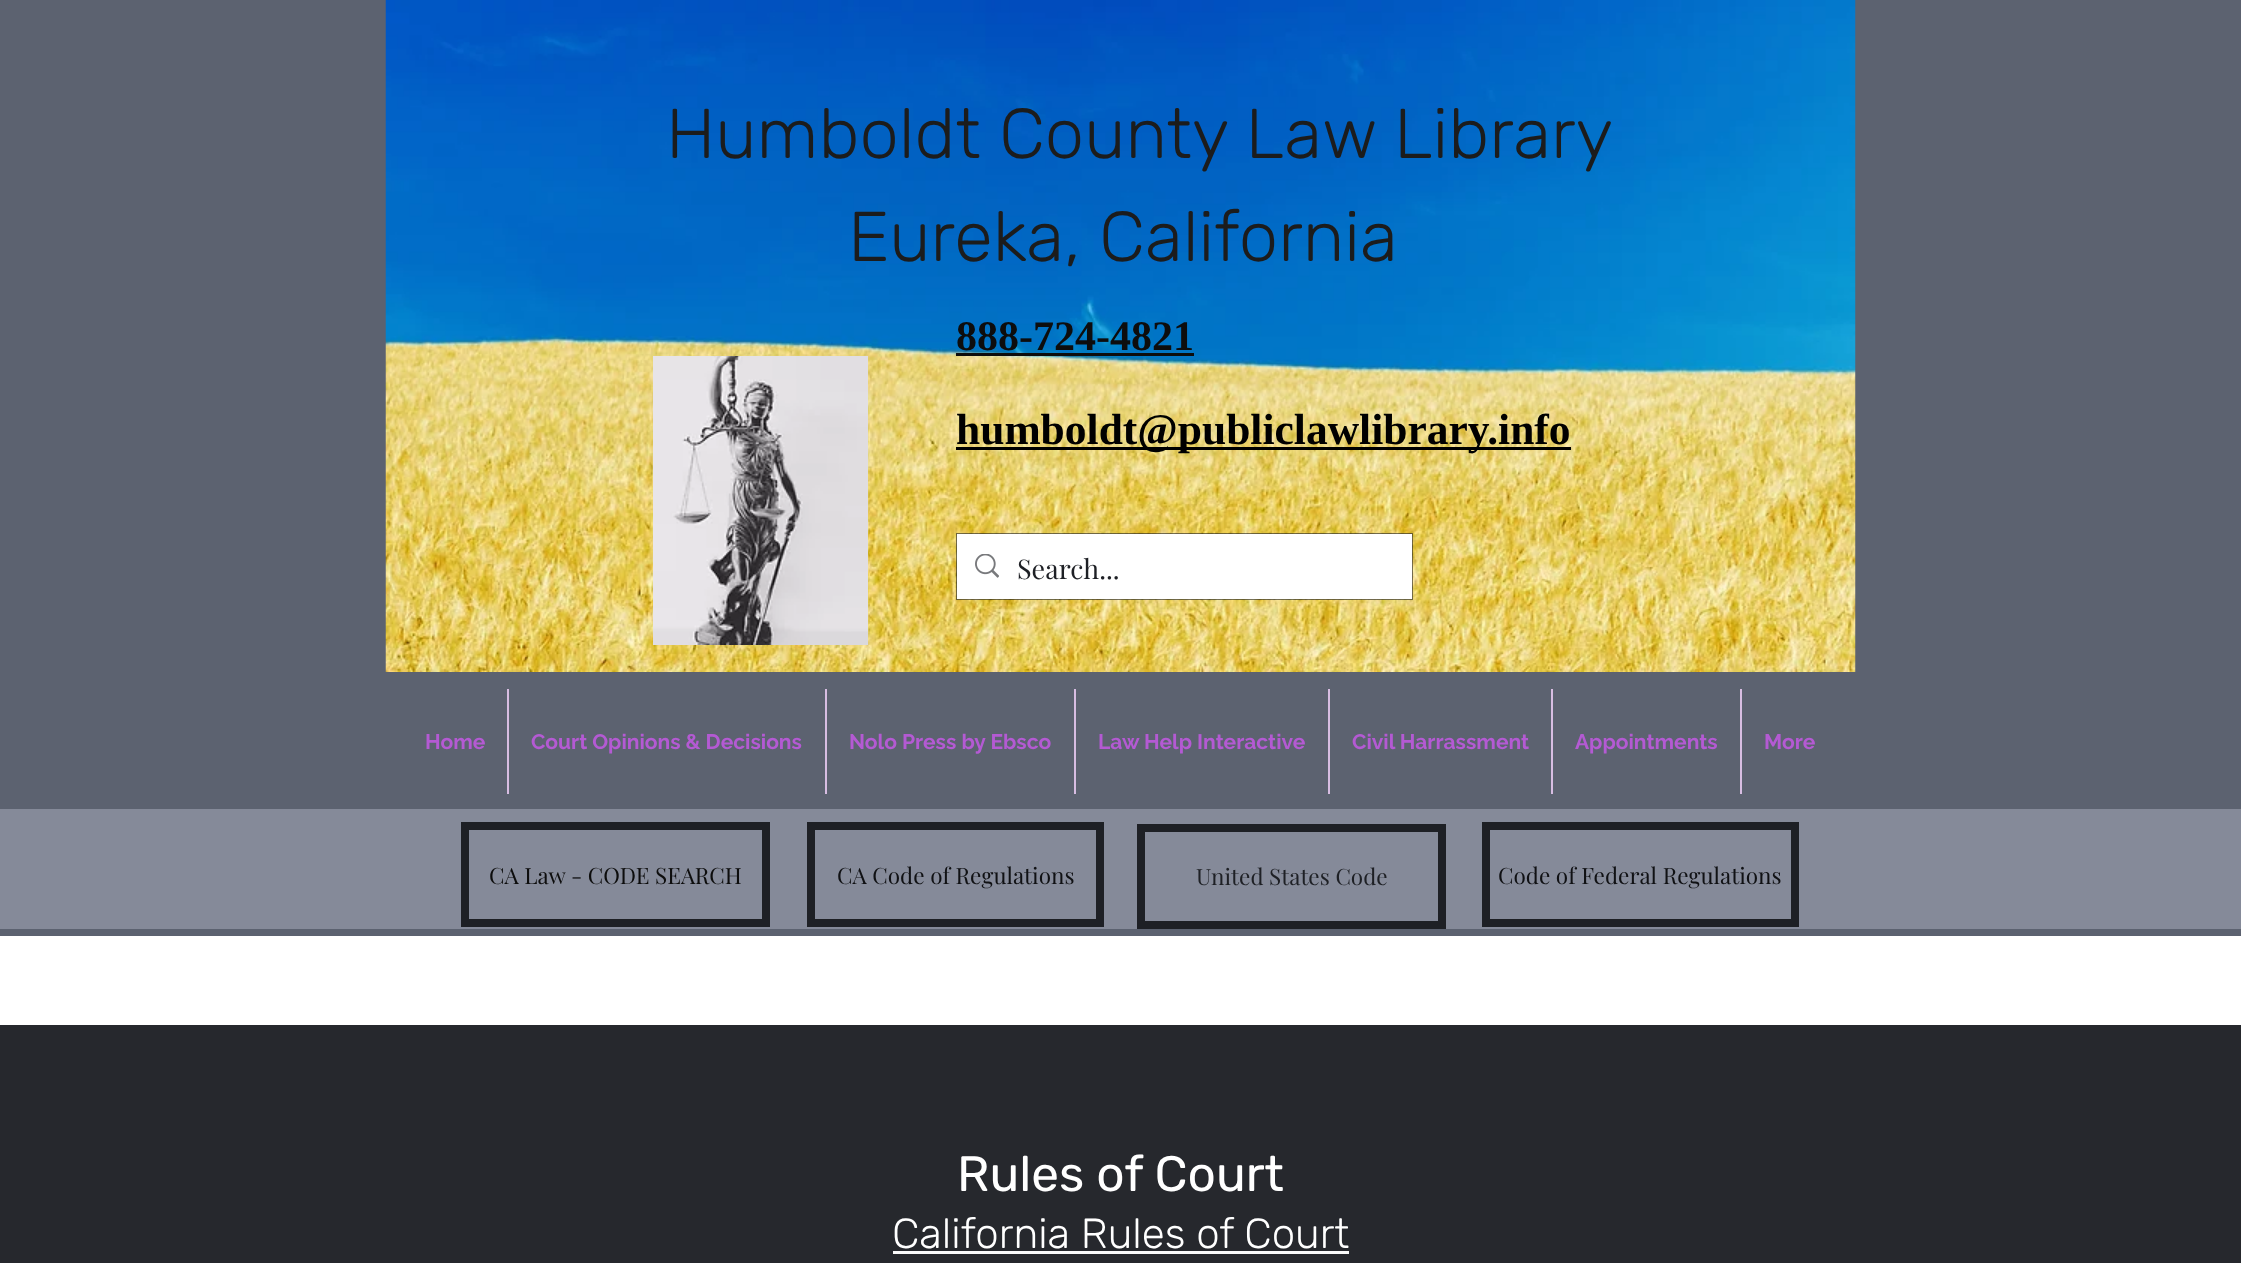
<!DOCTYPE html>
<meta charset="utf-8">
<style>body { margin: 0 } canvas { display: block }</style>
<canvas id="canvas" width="2241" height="1263"></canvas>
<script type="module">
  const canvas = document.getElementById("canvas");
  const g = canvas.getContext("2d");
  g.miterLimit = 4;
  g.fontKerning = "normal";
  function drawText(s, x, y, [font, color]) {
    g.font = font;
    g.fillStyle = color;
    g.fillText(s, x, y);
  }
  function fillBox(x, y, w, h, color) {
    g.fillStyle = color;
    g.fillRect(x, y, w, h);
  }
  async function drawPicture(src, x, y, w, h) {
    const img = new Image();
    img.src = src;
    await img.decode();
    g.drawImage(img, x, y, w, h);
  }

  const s1 = ["300 70.5px Rubik", "#1C1C1C"];
  const s2 = ["bold 42px Liberation Serif", "#0D0D0D"];
  const s3 = ["bold 43.5px Liberation Serif", "#000000"];
  const s4 = ["27px Playfair Display", "#1E2025"];
  const s5 = ["bold 21px Raleway", "#B45AD3"];
  const s6 = ["22.5px Playfair Display", "#0D0D0D"];
  const s7 = ["22.5px Playfair Display", "#101114"];
  const s8 = ["22.5px Playfair Display", "#1E2025"];
  const s9 = ["49.5px Rubik", "#FFFFFF"];
  const s10 = ["300 42px Rubik", "#FFFFFF"];

  fillBox(0, 0, 2241, 1263, "#FFFFFF");
  fillBox(0, 0, 2241, 936, "#5C6270");
  await drawPicture("pic1.png", 385, 0, 1471, 672);
  drawText("Humboldt County Law Library", 666, 158, s1);
  drawText("Eureka, California", 848, 261, s1);
  drawText("888-724-4821", 956, 350, s2);
  fillBox(956, 353, 238, 3, "#0D0D0D");
  await drawPicture("pic2.png", 653, 356, 216, 289);
  fillBox(956, 447, 615, 3, "#000000");
  drawText("humboldt@publiclawlibrary.info", 956, 444, s3);
  g.strokeStyle = "rgba(30, 32, 37, 0.6)";
  g.lineWidth = 2;
  g.strokeRect(957, 534, 455, 65);
  fillBox(957, 534, 455, 65, "#FFFFFF");
  await drawPicture("pic3.png", 975, 554, 24, 24);
  drawText("Search...", 1017, 579, s4);
  drawText("Home", 425, 749, s5);
  fillBox(507, 689, 2, 105, "#D8BDE2");
  drawText("Court Opinions & Decisions", 531, 749, s5);
  fillBox(825, 689, 2, 105, "#D8BDE2");
  drawText("Nolo Press by Ebsco", 849, 749, s5);
  fillBox(1074, 689, 2, 105, "#D8BDE2");
  drawText("Law Help Interactive", 1098, 749, s5);
  fillBox(1328, 689, 2, 105, "#D8BDE2");
  drawText("Civil Harrassment", 1352, 749, s5);
  fillBox(1551, 689, 2, 105, "#D8BDE2");
  drawText("Appointments", 1575, 749, s5);
  fillBox(1740, 689, 2, 105, "#D8BDE2");
  drawText("More", 1764, 749, s5);
  fillBox(0, 809, 2241, 120, "#858A99");
  g.strokeStyle = "#1E2025";
  g.lineWidth = 8;
  g.strokeRect(465, 826, 301, 97);
  drawText("CA Law - CODE SEARCH", 489, 884, s6);
  g.strokeRect(811, 826, 289, 97);
  drawText("CA Code of Regulations", 837, 884, s7);
  g.strokeRect(1141, 828, 301, 97);
  drawText("United States Code", 1196, 885, s8);
  g.strokeRect(1486, 826, 309, 97);
  drawText("Code of Federal Regulations", 1498, 884, s7);
  fillBox(0, 1025, 2241, 238, "#26282D");
  drawText("Rules of Court", 957, 1191, s9);
  drawText("California Rules of Court", 892, 1248, s10);
  fillBox(893, 1251, 456, 3, "#FAFAFA");
</script>
